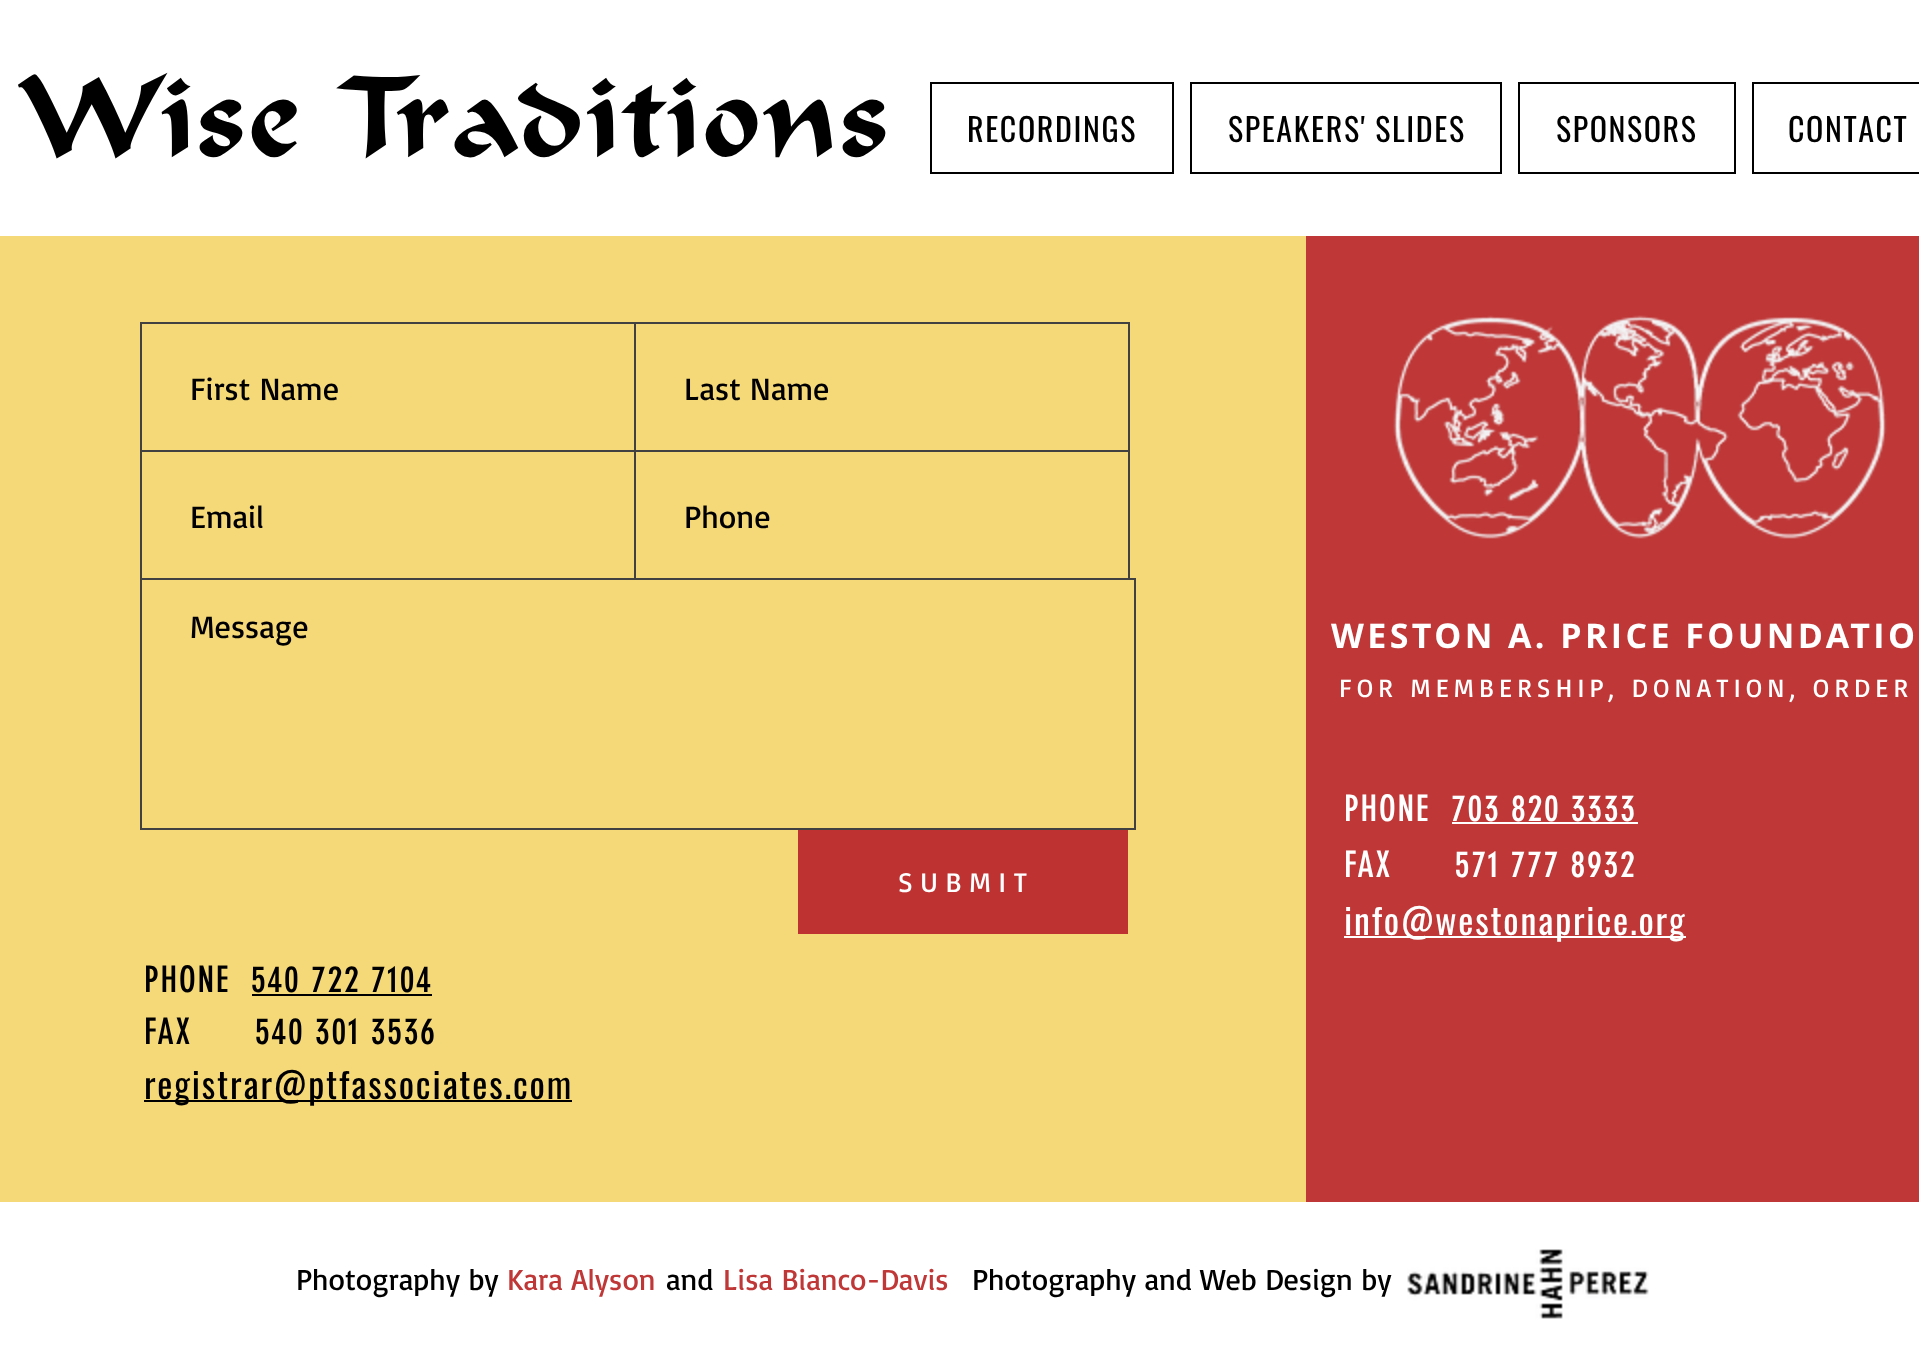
<!DOCTYPE html>
<meta charset="utf-8">
<style>body { margin: 0 } canvas { display: block }</style>
<canvas id="canvas" width="1919" height="1368"></canvas>
<script type="module">
  const canvas = document.getElementById("canvas");
  const g = canvas.getContext("2d");
  g.miterLimit = 4;
  g.fontKerning = "normal";
  function drawText(s, x, y, [font, color]) {
    g.font = font;
    g.fillStyle = color;
    g.fillText(s, x, y);
  }
  function fillBox(x, y, w, h, color) {
    g.fillStyle = color;
    g.fillRect(x, y, w, h);
  }
  async function drawPicture(src, x, y, w, h) {
    const img = new Image();
    img.src = src;
    await img.decode();
    g.drawImage(img, x, y, w, h);
  }

  const s1 = ["110px 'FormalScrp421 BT'", "#000000"];
  const s2 = ["32px Oswald", "#000000"];
  const s3 = ["32px Basic", "#000000"];
  const s4 = ["28px Basic", "#FFFFFF"];
  const s5 = ["36px 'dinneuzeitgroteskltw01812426'", "#000000"];
  const s6 = ["36px Oswald", "#000000"];
  const s7 = ["bold 34px Open Sans", "#FFFFFF"];
  const s8 = ["26px Basic", "#FFFFFF"];
  const s9 = ["36px 'dinneuzeitgroteskltw01812426'", "#FFFFFF"];
  const s10 = ["36px Oswald", "#FFFFFF"];
  const s11 = ["30px Basic", "#000000"];
  const s12 = ["30px Basic", "#BF3737"];

  fillBox(0, 0, 1919, 1368, "#FFFFFF");
  g.letterSpacing = "3.25px";
  drawText("Wise Traditions", 20, 156, s1);
  g.strokeStyle = "#000000";
  g.lineWidth = 2;
  g.strokeRect(931, 83, 242, 90);
  g.letterSpacing = "1.6px";
  drawText("RECORDINGS", 967, 142, s2);
  g.strokeRect(1191, 83, 310, 90);
  drawText("SPEAKERS' SLIDES", 1228, 142, s2);
  g.strokeRect(1519, 83, 216, 90);
  drawText("SPONSORS", 1556, 142, s2);
  g.strokeRect(1753, 83, 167, 90);
  drawText("CONTACT", 1788, 142, s2);
  fillBox(0, 236, 1306, 966, "#F5D878");
  g.strokeStyle = "#414141";
  g.strokeRect(141, 323, 494, 130);
  g.letterSpacing = "0px";
  drawText("First Name", 190, 400, s3);
  g.strokeRect(635, 323, 494, 130);
  drawText("Last Name", 684, 400, s3);
  fillBox(142, 452, 492, 2, "#F5D878");
  g.strokeRect(141, 451, 494, 130);
  drawText("Email", 190, 528, s3);
  fillBox(636, 452, 492, 2, "#F5D878");
  g.strokeRect(635, 451, 494, 130);
  drawText("Phone", 684, 528, s3);
  fillBox(142, 580, 988, 2, "#F5D878");
  g.strokeRect(141, 579, 994, 250);
  drawText("Message", 190, 638, s3);
  fillBox(798, 830, 330, 104, "#BF3232");
  drawText("S U B M I T", 898, 892, s4);
  g.letterSpacing = "1.8px";
  drawText("PHONE", 144, 992, s5);
  drawText("540 722 7104", 251, 992, s5);
  fillBox(252, 994, 180, 2, "#000000");
  drawText("FAX", 144, 1044, s5);
  drawText("540 301 3536", 255, 1044, s5);
  fillBox(144, 1100, 428, 2, "#000000");
  drawText("registrar@ptfassociates.com", 144, 1099, s6);
  fillBox(1306, 236, 613, 966, "#BF3737");
  await drawPicture("pic1.png", 1393, 315, 494, 224);
  g.letterSpacing = "3.4px";
  drawText("WESTON A. PRICE FOUNDATIO", 1331, 648, s7);
  g.letterSpacing = "5.2px";
  drawText("FOR MEMBERSHIP, DONATION, ORDER", 1339, 697, s8);
  g.letterSpacing = "1.8px";
  drawText("PHONE", 1344, 821, s9);
  drawText("703 820 3333", 1451, 821, s9);
  fillBox(1452, 822, 186, 2, "#FFFFFF");
  drawText("FAX      571 777 8932", 1344, 877, s9);
  fillBox(1344, 936, 342, 2, "#FFFFFF");
  drawText("info@westonaprice.org", 1344, 935, s10);
  g.letterSpacing = "0px";
  drawText("Photography by", 296, 1290, s11);
  drawText("Kara Alyson", 507, 1290, s12);
  drawText("and", 666, 1290, s11);
  drawText("Lisa Bianco-Davis", 723, 1290, s12);
  drawText("Photography and Web Design by", 972, 1290, s11);
  await drawPicture("pic2.png", 1407, 1249, 242, 70);
</script>
